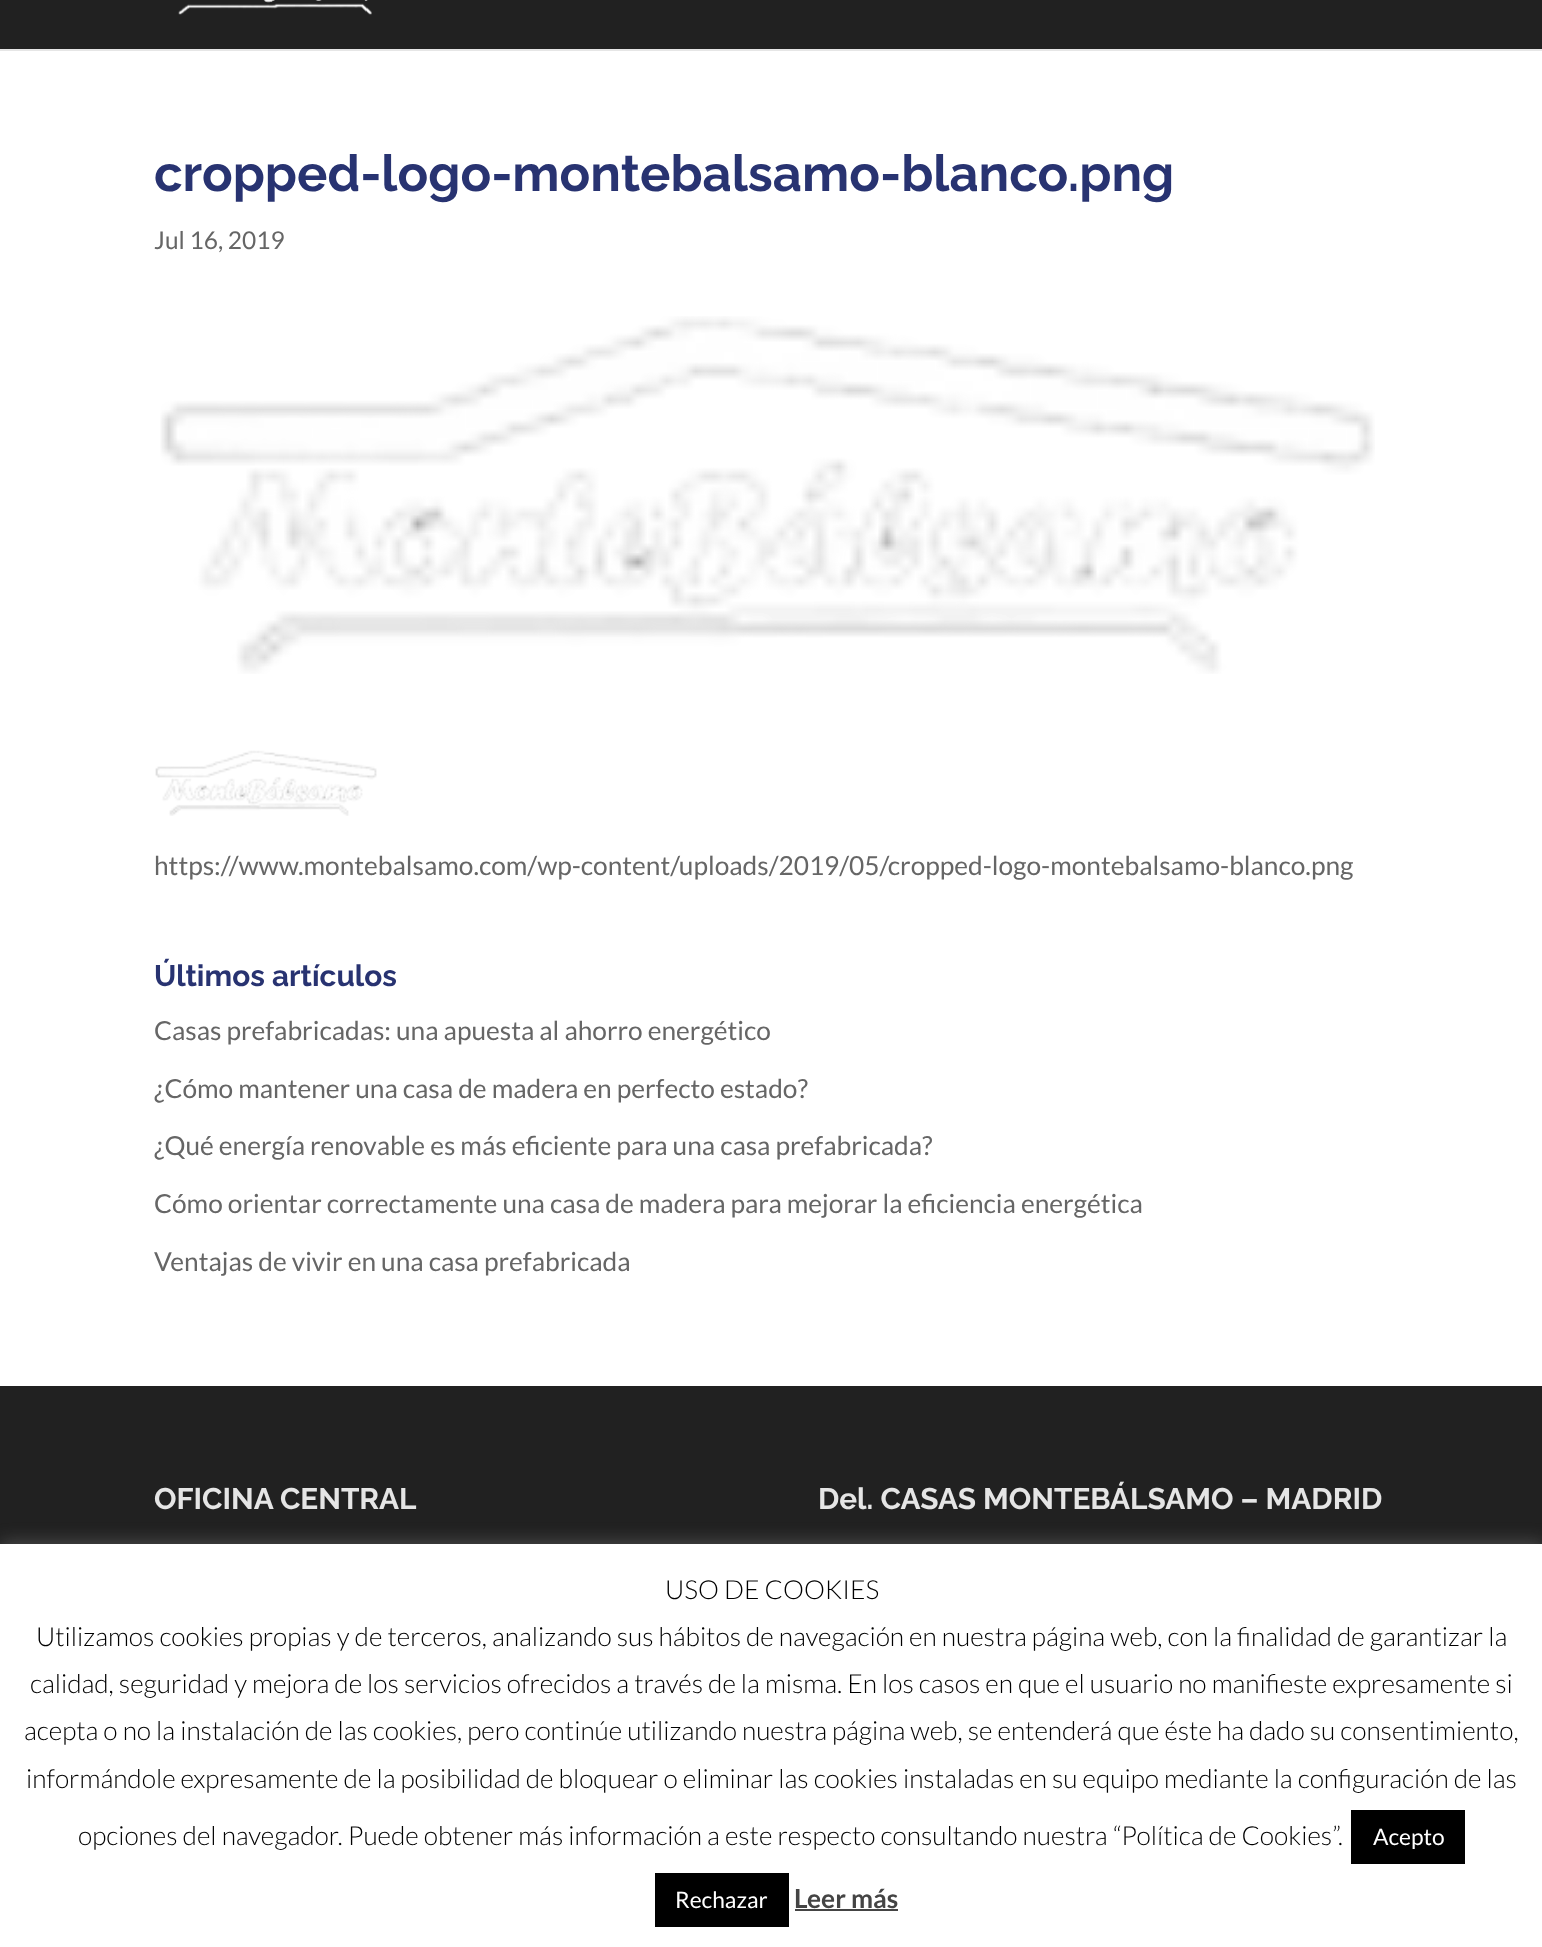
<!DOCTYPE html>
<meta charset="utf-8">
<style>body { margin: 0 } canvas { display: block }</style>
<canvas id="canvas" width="1542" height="1947"></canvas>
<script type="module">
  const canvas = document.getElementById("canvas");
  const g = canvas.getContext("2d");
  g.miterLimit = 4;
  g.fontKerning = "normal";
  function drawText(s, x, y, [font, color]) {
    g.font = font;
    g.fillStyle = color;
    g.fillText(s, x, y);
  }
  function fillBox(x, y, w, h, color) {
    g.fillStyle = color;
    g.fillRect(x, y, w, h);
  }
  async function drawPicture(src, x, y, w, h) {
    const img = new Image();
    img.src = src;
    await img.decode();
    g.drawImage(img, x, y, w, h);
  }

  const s1 = ["100 50.75px Raleway", "#283371"];
  const s2 = ["24.5px Lato", "#666666"];
  const s3 = ["26.25px Lato", "#666666"];
  const s4 = ["100 29.75px Raleway", "#283371"];
  const s5 = ["100 29.75px Raleway", "#E5E5E5"];
  const s6 = ["300 26.25px Lato", "#000000"];
  const s7 = ["22.75px Lato", "#FFFFFF"];
  const s8 = ["bold 26.25px Lato", "#444444"];

  fillBox(0, 0, 1542, 1947, "#FFFFFF");
  g.fillStyle = "#E6E6E6";
  g.beginPath();
  g.moveTo(0, 49);
  g.lineTo(0, 51);
  g.lineTo(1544, 51);
  g.lineTo(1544, -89);
  g.lineTo(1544, 49);
  g.closePath();
  g.fill();
  fillBox(0, 0, 1542, 49, "#212121");
  await drawPicture("pic1.png", 178, 0, 194, 15);
  drawText("cropped-logo-montebalsamo-blanco.png", 154, 191, s1);
  drawText("Jul 16, 2019", 154, 249, s2);
  await drawPicture("pic2.png", 160, 316, 1215, 358);
  await drawPicture("pic3.png", 155, 750, 222, 66);
  drawText("https://www.montebalsamo.com/wp-content/uploads/2019/05/cropped-logo-montebalsamo-blanco.png", 154, 875, s3);
  drawText("Últimos artículos", 154, 986, s4);
  drawText("Casas prefabricadas: una apuesta al ahorro energético", 154, 1040, s3);
  drawText("¿Cómo mantener una casa de madera en perfecto estado?", 154, 1098, s3);
  drawText("¿Qué energía renovable es más eficiente para una casa prefabricada?", 154, 1155, s3);
  drawText("Cómo orientar correctamente una casa de madera para mejorar la eficiencia energética", 154, 1213, s3);
  drawText("Ventajas de vivir en una casa prefabricada", 154, 1271, s3);
  fillBox(0, 1386, 1542, 158, "#212121");
  drawText("OFICINA CENTRAL", 154, 1509, s5);
  drawText("Del. CASAS MONTEBÁLSAMO – MADRID", 818, 1509, s5);
  g.fillStyle = "rgba(172, 171, 171, 0.3)";
  g.filter = "blur(9px)";
  g.beginPath();
  g.rect(0, 1542, 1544, 404);
  g.fill();
  g.filter = "none";
  fillBox(0, 1544, 1542, 403, "#FFFFFF");
  drawText("USO DE COOKIES", 665, 1599, s6);
  drawText("Utilizamos cookies propias y de terceros, analizando sus hábitos de navegación en nuestra página web, con la finalidad de garantizar la", 36, 1646, s6);
  drawText("calidad, seguridad y mejora de los servicios ofrecidos a través de la misma. En los casos en que el usuario no manifieste expresamente si", 30, 1693, s6);
  drawText("acepta o no la instalación de las cookies, pero continúe utilizando nuestra página web, se entenderá que éste ha dado su consentimiento,", 24, 1740, s6);
  drawText("informándole expresamente de la posibilidad de bloquear o eliminar las cookies instaladas en su equipo mediante la configuración de las", 26, 1788, s6);
  drawText("opciones del navegador. Puede obtener más información a este respecto consultando nuestra “Política de Cookies”.", 78, 1845, s6);
  fillBox(1351, 1810, 114, 54, "#000000");
  drawText("Acepto", 1373, 1845, s7);
  fillBox(655, 1873, 134, 54, "#000000");
  drawText("Rechazar", 675, 1908, s7);
  drawText("Leer más", 794, 1908, s8);
  fillBox(795, 1909, 103, 2, "#444444");
</script>
